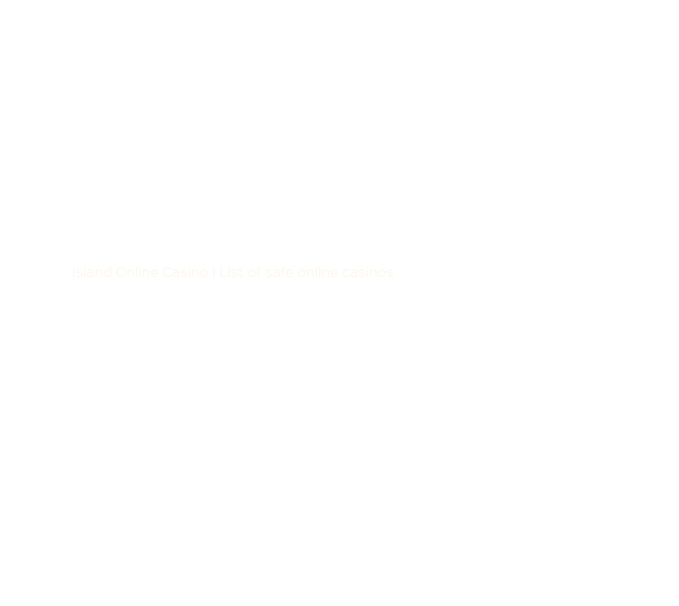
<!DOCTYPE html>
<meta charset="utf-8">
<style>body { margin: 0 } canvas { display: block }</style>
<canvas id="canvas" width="679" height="606"></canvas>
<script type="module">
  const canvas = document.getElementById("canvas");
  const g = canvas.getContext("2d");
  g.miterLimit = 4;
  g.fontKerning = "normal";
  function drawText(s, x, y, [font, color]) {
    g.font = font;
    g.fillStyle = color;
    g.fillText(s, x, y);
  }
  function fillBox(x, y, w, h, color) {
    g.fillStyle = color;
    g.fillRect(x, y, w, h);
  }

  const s1 = ["12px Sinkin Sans", "#FEF7ED"];

  fillBox(0, 0, 679, 606, "#FFFFFF");
  drawText("Island Online Casino | List of safe online casinos", 72, 277, s1);
</script>
